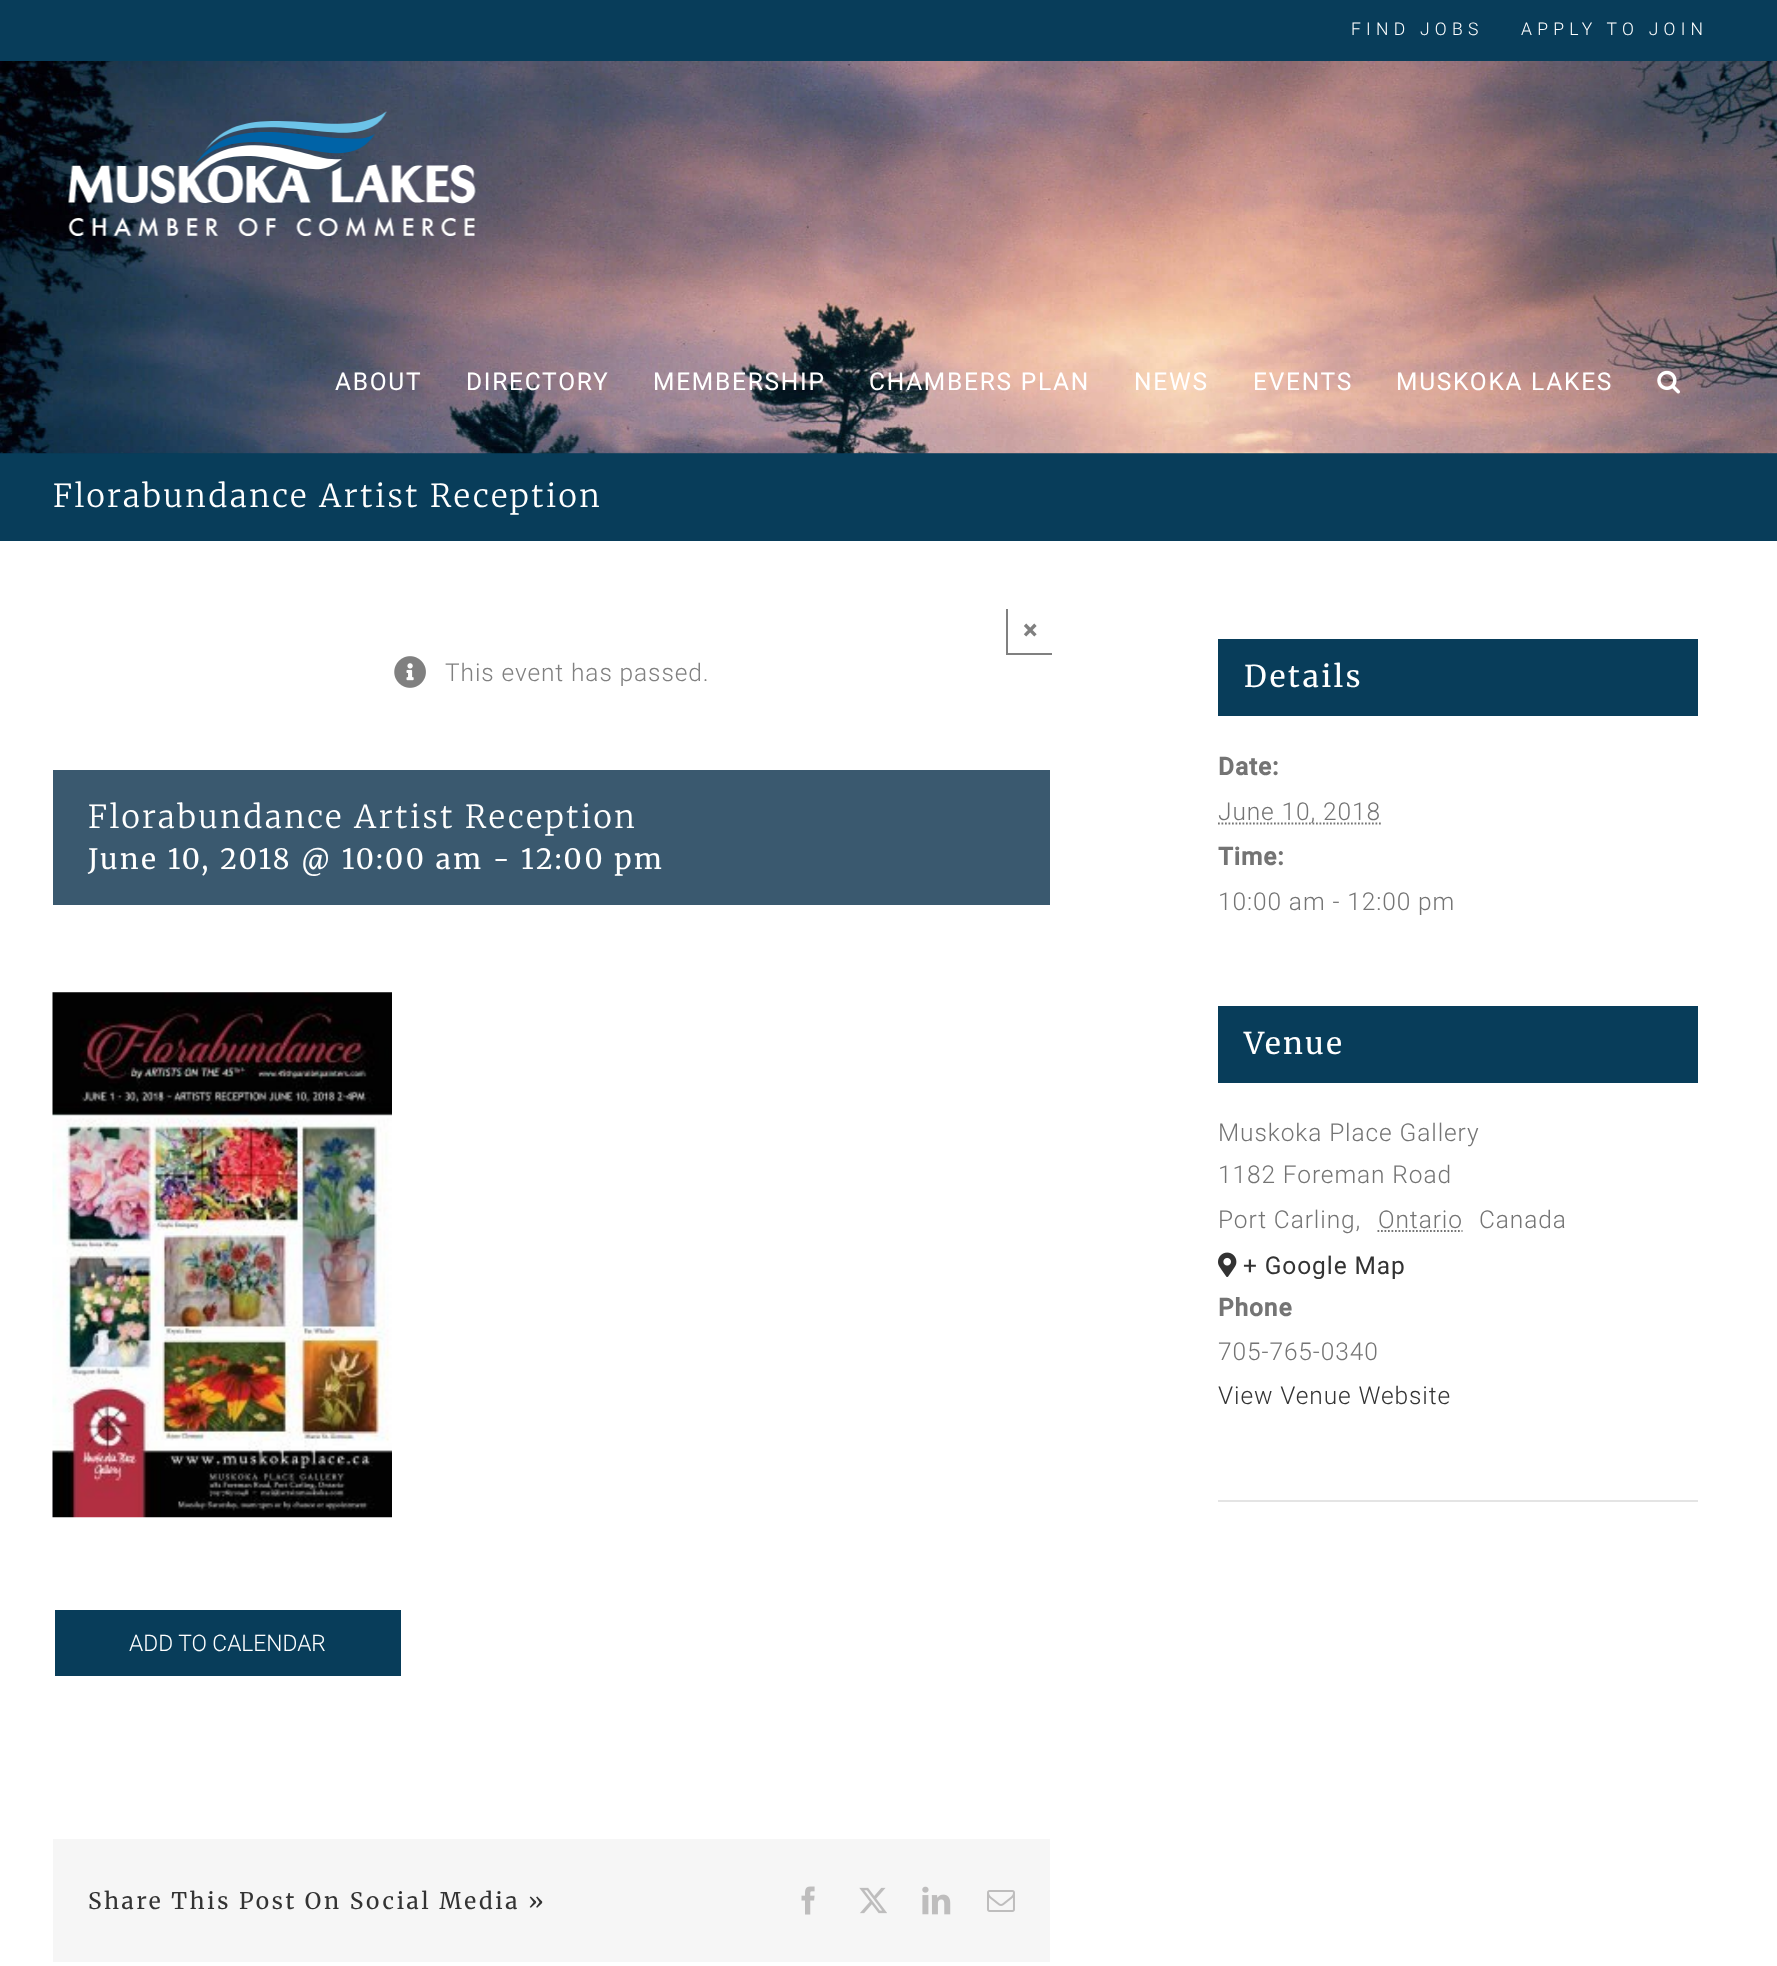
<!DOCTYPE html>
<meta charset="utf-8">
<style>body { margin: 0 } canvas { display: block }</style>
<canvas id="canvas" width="1777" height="1966"></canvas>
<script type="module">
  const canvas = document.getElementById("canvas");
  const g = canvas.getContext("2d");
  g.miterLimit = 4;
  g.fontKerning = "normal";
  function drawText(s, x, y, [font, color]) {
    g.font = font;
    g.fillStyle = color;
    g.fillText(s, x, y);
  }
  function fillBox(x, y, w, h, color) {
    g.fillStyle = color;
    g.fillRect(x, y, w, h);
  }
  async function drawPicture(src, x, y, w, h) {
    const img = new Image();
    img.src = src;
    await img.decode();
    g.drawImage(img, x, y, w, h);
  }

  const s1 = ["300 17.5px Roboto", "#FFFFFF"];
  const s2 = ["24.5px Roboto", "#FFFFFF"];
  const s3 = ["300 31.5px Merriweather", "#FFFFFF"];
  const s4 = ["bold 26px Roboto", "#808080"];
  const s5 = ["300 24.5px Roboto", "#808080"];
  const s6 = ["28px Merriweather", "#FFFFFF"];
  const s7 = ["300 22.75px Roboto", "#FFFFFF"];
  const s8 = ["22.75px Merriweather", "#333333"];
  const s9 = ["30px Merriweather", "#FFFFFF"];
  const s10 = ["bold 24.5px Roboto", "#747474"];
  const s11 = ["300 24.5px Roboto", "#747474"];
  const s12 = ["24.5px Roboto", "#333333"];
  const s13 = ["300 24.5px Roboto", "#333333"];

  fillBox(0, 0, 1777, 1966, "#FFFFFF");
  fillBox(0, 0, 1777, 61, "#083D5A");
  g.letterSpacing = "5.25px";
  drawText("FIND JOBS", 1351, 35, s1);
  drawText("APPLY TO JOIN", 1521, 35, s1);
  fillBox(0, 453, 1777, 88, "#083D5A");
  await drawPicture("pic1.png", 0, 61, 1777, 393);
  await drawPicture("pic2.png", 68, 111, 408, 126);
  g.letterSpacing = "1.75px";
  drawText("ABOUT", 335, 390, s2);
  drawText("DIRECTORY", 466, 390, s2);
  drawText("MEMBERSHIP", 653, 390, s2);
  drawText("CHAMBERS PLAN", 869, 390, s2);
  drawText("NEWS", 1134, 390, s2);
  drawText("EVENTS", 1253, 390, s2);
  drawText("MUSKOKA LAKES", 1396, 390, s2);
  await drawPicture("pic3.png", 1657, 370, 23, 24);
  g.letterSpacing = "2.6px";
  drawText("Florabundance Artist Reception", 53, 507, s3);
  fillBox(1006, 653, 46, 2, "#808080");
  fillBox(1006, 609, 2, 46, "#808080");
  g.letterSpacing = "0px";
  drawText("×", 1023, 639, s4);
  await drawPicture("pic4.png", 394, 656, 32, 32);
  g.letterSpacing = "0.9px";
  drawText("This event has passed.", 445, 681, s5);
  fillBox(53, 770, 997, 135, "#3A596F");
  g.letterSpacing = "2.6px";
  drawText("Florabundance Artist Reception", 88, 828, s3);
  drawText("June 10, 2018 @ 10:00 am - 12:00 pm", 88, 869, s6);
  await drawPicture("pic5.png", 52, 992, 340, 526);
  fillBox(55, 1610, 346, 66, "#083D5A");
  g.letterSpacing = "0px";
  drawText("ADD TO CALENDAR", 129, 1651, s7);
  fillBox(53, 1839, 997, 123, "#F6F6F6");
  g.letterSpacing = "2.6px";
  drawText("Share This Post On Social Media »", 88, 1909, s8);
  await drawPicture("pic6.png", 801, 1886, 14, 29);
  await drawPicture("pic7.png", 859, 1887, 28, 27);
  await drawPicture("pic8.png", 922, 1886, 29, 29);
  await drawPicture("pic9.png", 987, 1890, 28, 22);
  fillBox(1218, 639, 480, 77, "#083D5A");
  drawText("Details", 1244, 687, s9);
  g.letterSpacing = "0.9px";
  drawText("Date:", 1218, 775, s10);
  g.beginPath();
  g.moveTo(1218, 823.5);
  g.lineTo(1381, 823.5);
  g.strokeStyle = "#747474";
  g.lineWidth = 1.8;
  g.setLineDash([1.75, 1.75]);
  g.stroke();
  drawText("June 10, 2018", 1218, 820, s11);
  drawText("Time:", 1218, 865, s10);
  drawText("10:00 am - 12:00 pm", 1218, 910, s11);
  fillBox(1218, 1006, 480, 77, "#083D5A");
  g.letterSpacing = "2.6px";
  drawText("Venue", 1244, 1054, s9);
  g.letterSpacing = "0.9px";
  drawText("Muskoka Place Gallery", 1218, 1141, s11);
  drawText("1182 Foreman Road", 1218, 1183, s11);
  drawText("Port Carling,", 1218, 1228, s11);
  drawText("Ontario", 1378, 1228, s11);
  g.beginPath();
  g.moveTo(1377.5, 1231);
  g.lineTo(1462.5, 1231);
  g.stroke();
  drawText("Canada", 1479, 1228, s11);
  await drawPicture("pic10.png", 1218, 1252, 19, 25);
  drawText("+ Google Map", 1243, 1274, s12);
  drawText("Phone", 1218, 1316, s10);
  drawText("705-765-0340", 1218, 1360, s11);
  drawText("View Venue Website", 1218, 1404, s13);
  fillBox(1218, 1500, 480, 2, "#E4E4E4");
</script>
